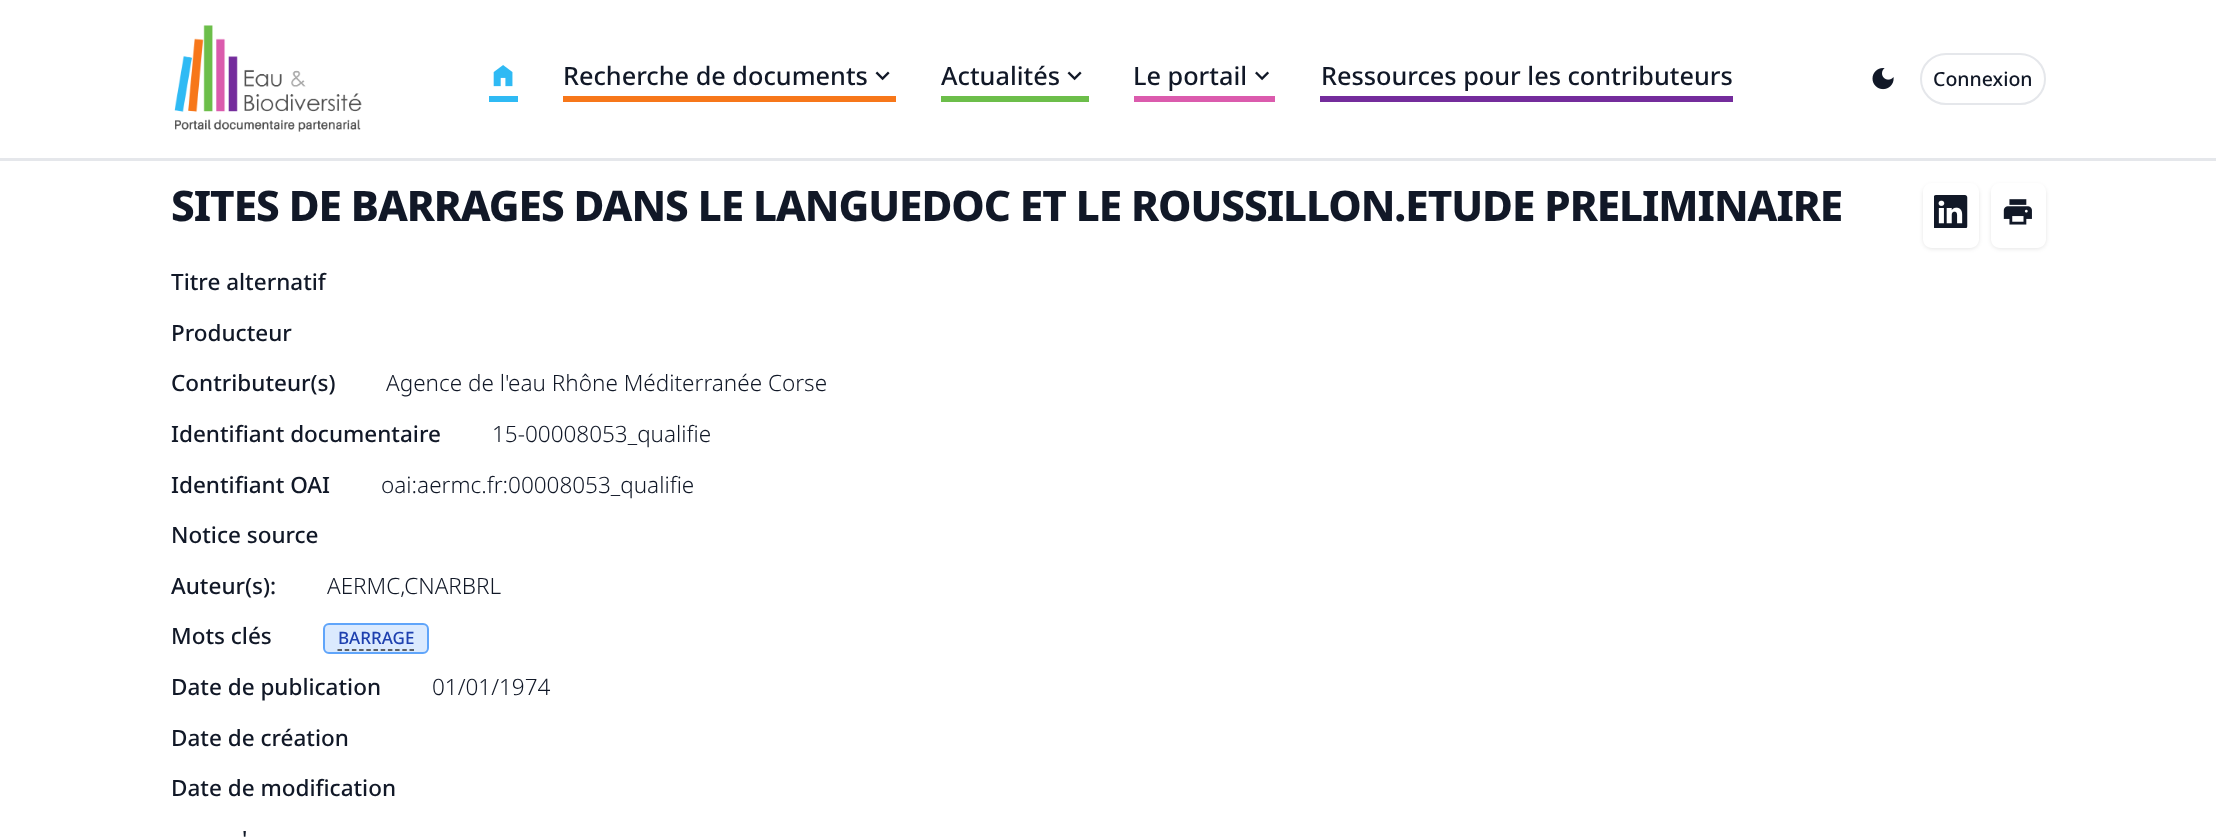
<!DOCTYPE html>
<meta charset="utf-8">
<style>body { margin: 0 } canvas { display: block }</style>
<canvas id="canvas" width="2216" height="837"></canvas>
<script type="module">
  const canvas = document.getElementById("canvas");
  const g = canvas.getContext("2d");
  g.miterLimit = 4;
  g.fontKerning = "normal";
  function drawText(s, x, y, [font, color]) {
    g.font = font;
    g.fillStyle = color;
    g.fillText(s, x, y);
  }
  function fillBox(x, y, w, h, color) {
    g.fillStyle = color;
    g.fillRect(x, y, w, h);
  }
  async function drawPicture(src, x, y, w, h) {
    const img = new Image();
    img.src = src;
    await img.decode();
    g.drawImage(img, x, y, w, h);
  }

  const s1 = ["500 25.25px Noto Sans", "#111827"];
  const s2 = ["500 19.5px Noto Sans", "#111827"];
  const s3 = ["800 42.2px Noto Sans", "#111827"];
  const s4 = ["500 22.5px Noto Sans", "#111827"];
  const s5 = ["300 22.5px Noto Sans", "#111827"];
  const s6 = ["500 17px Noto Sans", "#1E40AF"];

  fillBox(0, 0, 2216, 837, "#FFFFFF");
  fillBox(0, 158, 2216, 3, "#E5E7EB");
  await drawPicture("pic1.png", 174, 25, 188, 107);
  fillBox(489, 96, 29, 6, "#2FBAF4");
  await drawPicture("pic2.png", 493, 65, 20, 22);
  fillBox(563, 96, 333, 6, "#F7771A");
  drawText("Recherche de documents", 563, 85, s1);
  await drawPicture("pic3.png", 875, 71, 15, 10);
  fillBox(941, 96, 148, 6, "#6CBE4A");
  drawText("Actualités", 941, 85, s1);
  await drawPicture("pic3.png", 1067, 71, 15, 10);
  fillBox(1134, 96, 141, 6, "#DB5BAD");
  drawText("Le portail", 1133, 85, s1);
  await drawPicture("pic4.png", 1255, 71, 14, 10);
  fillBox(1320, 96, 413, 6, "#742C9C");
  drawText("Ressources pour les contributeurs", 1321, 85, s1);
  await drawPicture("pic5.png", 1872, 68, 22, 22);
  g.beginPath();
  g.roundRect(1921, 54, 124, 50, 25);
  g.strokeStyle = "#E5E7EB";
  g.lineWidth = 2;
  g.stroke();
  drawText("Connexion", 1933, 86, s2);
  g.letterSpacing = "-1.05px";
  drawText("SITES DE BARRAGES DANS LE LANGUEDOC ET LE ROUSSILLON.ETUDE PRELIMINAIRE", 171, 221, s3);
  g.save();
  g.beginPath();
  g.moveTo(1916, 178);
  g.lineTo(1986, 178);
  g.lineTo(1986, 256);
  g.lineTo(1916, 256);
  g.closePath();
  g.moveTo(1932, 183);
  g.lineTo(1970, 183);
  g.bezierCurveTo(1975, 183, 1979, 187, 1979, 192);
  g.lineTo(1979, 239);
  g.bezierCurveTo(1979, 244, 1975, 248, 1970, 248);
  g.lineTo(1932, 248);
  g.bezierCurveTo(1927, 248, 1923, 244, 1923, 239);
  g.lineTo(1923, 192);
  g.bezierCurveTo(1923, 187, 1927, 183, 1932, 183);
  g.closePath();
  g.clip("evenodd");
  g.fillStyle = "rgba(0, 0, 0, 0.1)";
  g.filter = "blur(2px)";
  g.beginPath();
  g.roundRect(1923, 185, 56, 64, 9);
  g.fill();
  g.filter = "none";
  g.restore();
  await drawPicture("pic6.png", 1934, 195, 34, 33);
  g.save();
  g.beginPath();
  g.moveTo(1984, 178);
  g.lineTo(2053, 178);
  g.lineTo(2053, 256);
  g.lineTo(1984, 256);
  g.closePath();
  g.moveTo(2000, 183);
  g.lineTo(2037, 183);
  g.bezierCurveTo(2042, 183, 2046, 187, 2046, 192);
  g.lineTo(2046, 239);
  g.bezierCurveTo(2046, 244, 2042, 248, 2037, 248);
  g.lineTo(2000, 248);
  g.bezierCurveTo(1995, 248, 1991, 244, 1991, 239);
  g.lineTo(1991, 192);
  g.bezierCurveTo(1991, 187, 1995, 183, 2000, 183);
  g.closePath();
  g.clip("evenodd");
  g.fillStyle = "rgba(0, 0, 0, 0.1)";
  g.filter = "blur(2px)";
  g.beginPath();
  g.roundRect(1991, 185, 55, 64, 9);
  g.fill();
  g.filter = "none";
  g.restore();
  await drawPicture("pic7.png", 2003, 199, 29, 26);
  g.letterSpacing = "0px";
  drawText("Titre alternatif", 171, 290, s4);
  drawText("Producteur", 171, 341, s4);
  drawText("Contributeur(s)", 171, 391, s4);
  drawText("Agence de l'eau Rhône Méditerranée Corse", 386, 391, s5);
  drawText("Identifiant documentaire", 171, 442, s4);
  drawText("15-00008053_qualifie", 492, 442, s5);
  drawText("Identifiant OAI", 171, 493, s4);
  drawText("oai:aermc.fr:00008053_qualifie", 381, 493, s5);
  drawText("Notice source", 171, 543, s4);
  drawText("Auteur(s):", 171, 594, s4);
  drawText("AERMC,CNARBRL", 327, 594, s5);
  drawText("Mots clés", 171, 644, s4);
  g.fillStyle = "#DBEAFE";
  g.beginPath();
  g.roundRect(324, 624, 104, 29, 5);
  g.fill();
  g.strokeStyle = "#60A5FA";
  g.stroke();
  drawText("BARRAGE", 338, 644, s6);
  g.beginPath();
  g.moveTo(337.5, 650);
  g.lineTo(414, 650);
  g.strokeStyle = "#333333";
  g.lineWidth = 1.5;
  g.setLineDash([4.5, 2.7]);
  g.stroke();
  drawText("Date de publication", 171, 695, s4);
  drawText("01/01/1974", 432, 695, s5);
  drawText("Date de création", 171, 746, s4);
  drawText("Date de modification", 171, 796, s4);
  drawText("'", 242, 847, s4);
</script>
